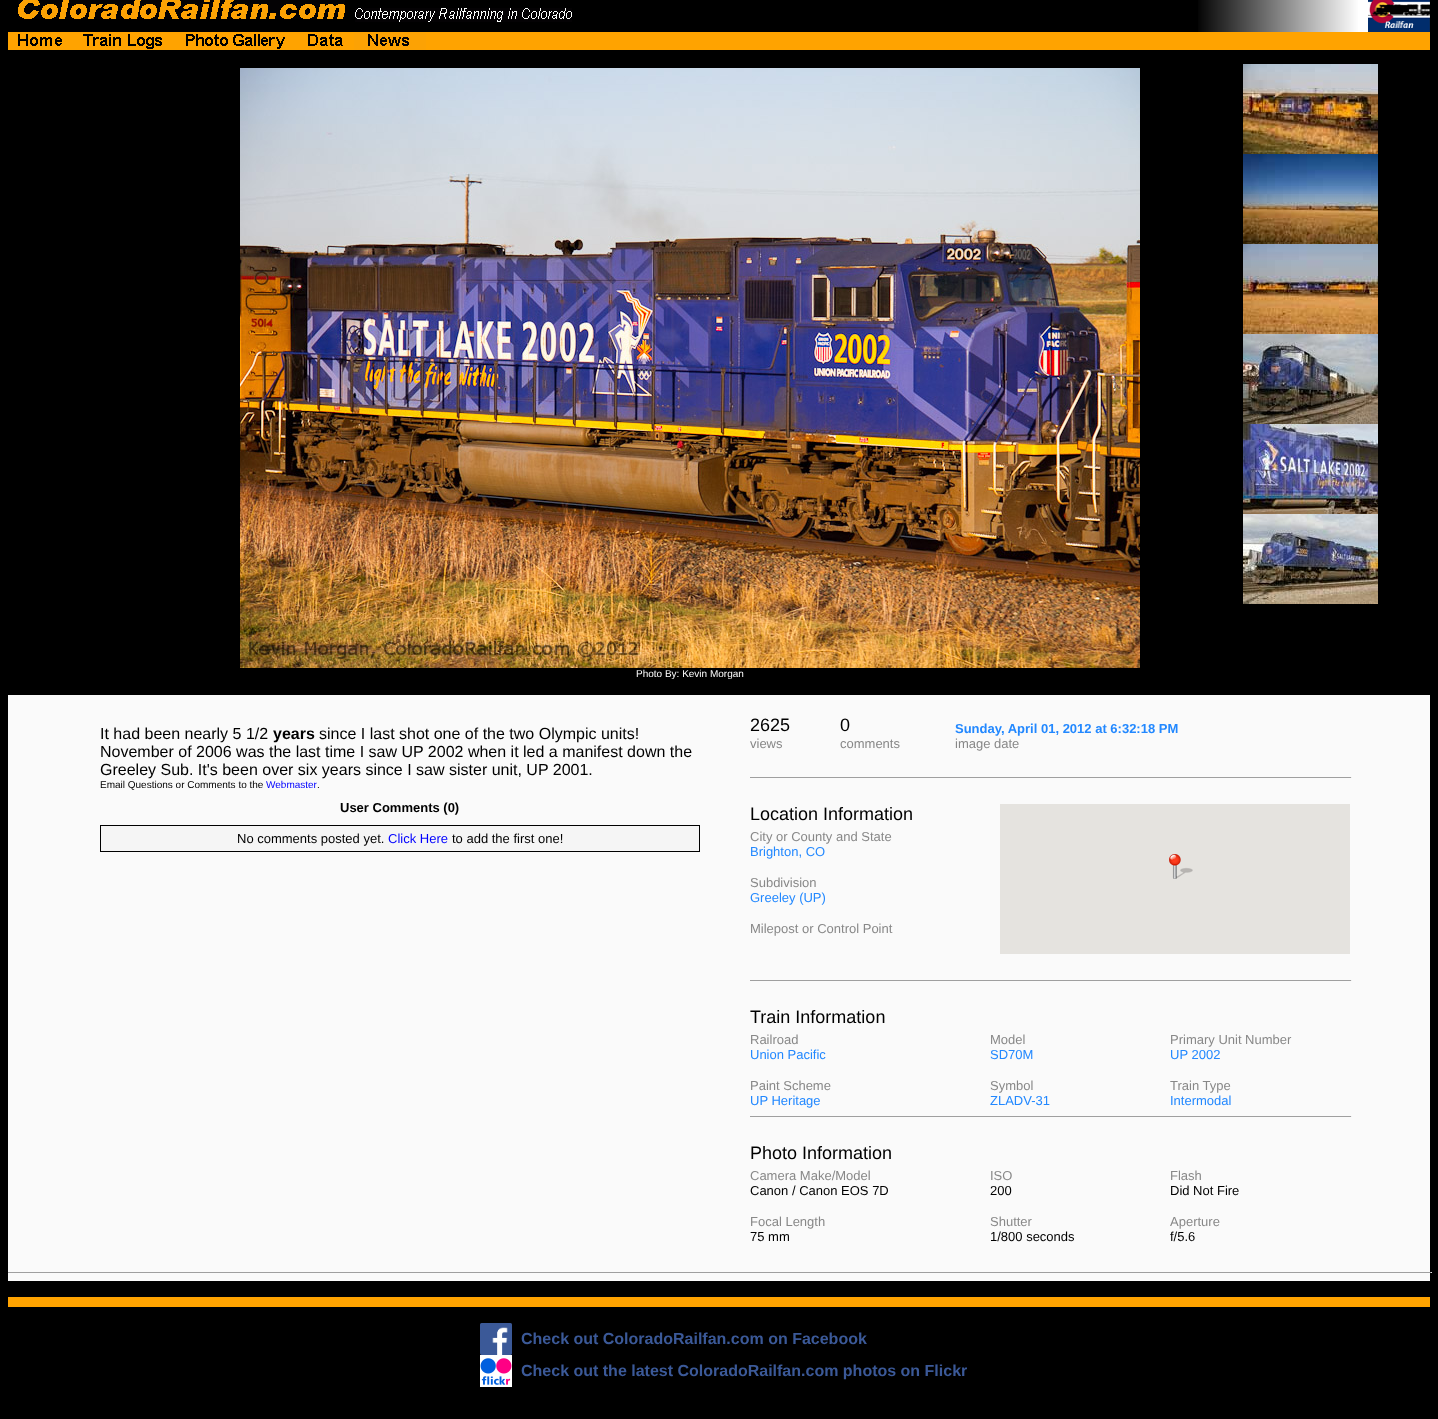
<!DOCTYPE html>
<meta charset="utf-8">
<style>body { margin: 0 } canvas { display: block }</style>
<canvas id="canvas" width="1438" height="1419"></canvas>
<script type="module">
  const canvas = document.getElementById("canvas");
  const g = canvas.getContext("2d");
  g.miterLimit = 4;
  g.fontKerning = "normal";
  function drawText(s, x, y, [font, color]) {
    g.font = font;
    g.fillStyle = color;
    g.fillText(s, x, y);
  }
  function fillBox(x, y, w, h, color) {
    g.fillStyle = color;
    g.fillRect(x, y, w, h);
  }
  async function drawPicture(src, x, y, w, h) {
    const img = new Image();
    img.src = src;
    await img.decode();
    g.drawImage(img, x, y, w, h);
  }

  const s1 = ["10px Liberation Sans", "#FFFFFF"];
  const s2 = ["16px Liberation Sans", "#000000"];
  const s3 = ["bold 16px Liberation Sans", "#000000"];
  const s4 = ["10px Liberation Sans", "#000000"];
  const s5 = ["10px Liberation Sans", "#0000FF"];
  const s6 = ["bold 13px Liberation Sans", "#000000"];
  const s7 = ["13px Liberation Sans", "#000000"];
  const s8 = ["13px Liberation Sans", "#0000FF"];
  const s9 = ["18px Liberation Sans", "#000000"];
  const s10 = ["13px Liberation Sans", "#888888"];
  const s11 = ["bold 13px Liberation Sans", "#2288FF"];
  const s12 = ["13px Liberation Sans", "#2288FF"];
  const s13 = ["bold 16px Liberation Sans", "#3B5998"];

  fillBox(0, 0, 1438, 1419, "#000000");
  await drawPicture("pic1.png", 18, 0, 327, 19);
  await drawPicture("pic2.png", 355, 8, 217, 14);
  await drawPicture("pic3.png", 1198, 0, 81, 32);
  await drawPicture("pic4.png", 1279, 0, 89, 32);
  await drawPicture("pic5.png", 1368, 0, 62, 32);
  await drawPicture("pic6.png", 8, 32, 65, 18);
  await drawPicture("pic7.png", 73, 32, 101, 18);
  await drawPicture("pic8.png", 174, 32, 122, 18);
  await drawPicture("pic9.png", 296, 32, 58, 18);
  await drawPicture("pic10.png", 354, 32, 72, 18);
  fillBox(426, 32, 1004, 18, "#FFA300");
  await drawPicture("pic11.png", 1243, 64, 135, 90);
  await drawPicture("pic12.png", 1243, 154, 135, 90);
  await drawPicture("pic13.png", 1243, 244, 135, 90);
  await drawPicture("pic14.png", 1243, 334, 135, 90);
  await drawPicture("pic15.png", 1243, 424, 135, 90);
  await drawPicture("pic16.png", 1243, 514, 135, 90);
  await drawPicture("pic17.png", 240, 68, 900, 600);
  drawText("Photo By: Kevin Morgan", 636, 677, s1);
  fillBox(8, 695, 1422, 586, "#FAFAFA");
  drawText("It had been nearly 5 1/2", 100, 739, s2);
  drawText("years", 273, 739, s3);
  drawText("since I last shot one of the two Olympic units!", 319, 739, s2);
  drawText("November of 2006 was the last time I saw UP 2002 when it led a manifest down the", 100, 757, s2);
  drawText("Greeley Sub. It's been over six years since I saw sister unit, UP 2001.", 100, 775, s2);
  drawText("Email Questions or Comments to the", 100, 788, s4);
  drawText("Webmaster", 266, 788, s5);
  drawText(".", 317, 788, s4);
  drawText("User Comments (0)", 340, 812, s6);
  fillBox(100, 825, 600, 27, "#000000");
  fillBox(101, 826, 598, 25, "#F5F5F5");
  drawText("No comments posted yet.", 237, 843, s7);
  drawText("Click Here", 388, 843, s8);
  drawText("to add the first one!", 452, 843, s7);
  drawText("2625", 750, 731, s9);
  drawText("views", 750, 748, s10);
  drawText("0", 840, 731, s9);
  drawText("comments", 840, 748, s10);
  drawText("Sunday, April 01, 2012 at 6:32:18 PM", 955, 733, s11);
  drawText("image date", 955, 748, s10);
  fillBox(750, 777, 602, 1, "#9F9F9F");
  fillBox(1351, 777, 1, 1, "#EEEEEE");
  drawText("Location Information", 750, 820, s9);
  fillBox(1000, 804, 350, 150, "#E5E3DF");
  await drawPicture("pic18.png", 1169, 854, 24, 25);
  drawText("City or County and State", 750, 841, s10);
  drawText("Brighton, CO", 750, 856, s12);
  drawText("Subdivision", 750, 887, s10);
  drawText("Greeley (UP)", 750, 902, s12);
  drawText("Milepost or Control Point", 750, 933, s10);
  fillBox(750, 980, 602, 1, "#9F9F9F");
  fillBox(1351, 980, 1, 1, "#EEEEEE");
  drawText("Train Information", 750, 1023, s9);
  drawText("Railroad", 750, 1044, s10);
  drawText("Union Pacific", 750, 1059, s12);
  drawText("Model", 990, 1044, s10);
  drawText("SD70M", 990, 1059, s12);
  drawText("Primary Unit Number", 1170, 1044, s10);
  drawText("UP 2002", 1170, 1059, s12);
  drawText("Paint Scheme", 750, 1090, s10);
  drawText("UP Heritage", 750, 1105, s12);
  drawText("Symbol", 990, 1090, s10);
  drawText("ZLADV-31", 990, 1105, s12);
  drawText("Train Type", 1170, 1090, s10);
  drawText("Intermodal", 1170, 1105, s12);
  fillBox(750, 1116, 602, 1, "#9F9F9F");
  fillBox(1351, 1116, 1, 1, "#EEEEEE");
  drawText("Photo Information", 750, 1159, s9);
  drawText("Camera Make/Model", 750, 1180, s10);
  drawText("Canon / Canon EOS 7D", 750, 1195, s7);
  drawText("ISO", 990, 1180, s10);
  drawText("200", 990, 1195, s7);
  drawText("Flash", 1170, 1180, s10);
  drawText("Did Not Fire", 1170, 1195, s7);
  drawText("Focal Length", 750, 1226, s10);
  drawText("75 mm", 750, 1241, s7);
  drawText("Shutter", 990, 1226, s10);
  drawText("1/800 seconds", 990, 1241, s7);
  drawText("Aperture", 1170, 1226, s10);
  drawText("f/5.6", 1170, 1241, s7);
  fillBox(8, 1272, 1424, 1, "#9F9F9F");
  fillBox(1431, 1272, 1, 1, "#EEEEEE");
  fillBox(8, 1297, 1422, 10, "#FFA300");
  await drawPicture("pic19.png", 480, 1323, 32, 32);
  drawText("Check out ColoradoRailfan.com on Facebook", 521, 1344, s13);
  await drawPicture("pic20.png", 480, 1355, 32, 32);
  drawText("Check out the latest ColoradoRailfan.com photos on Flickr", 521, 1376, s13);
</script>
